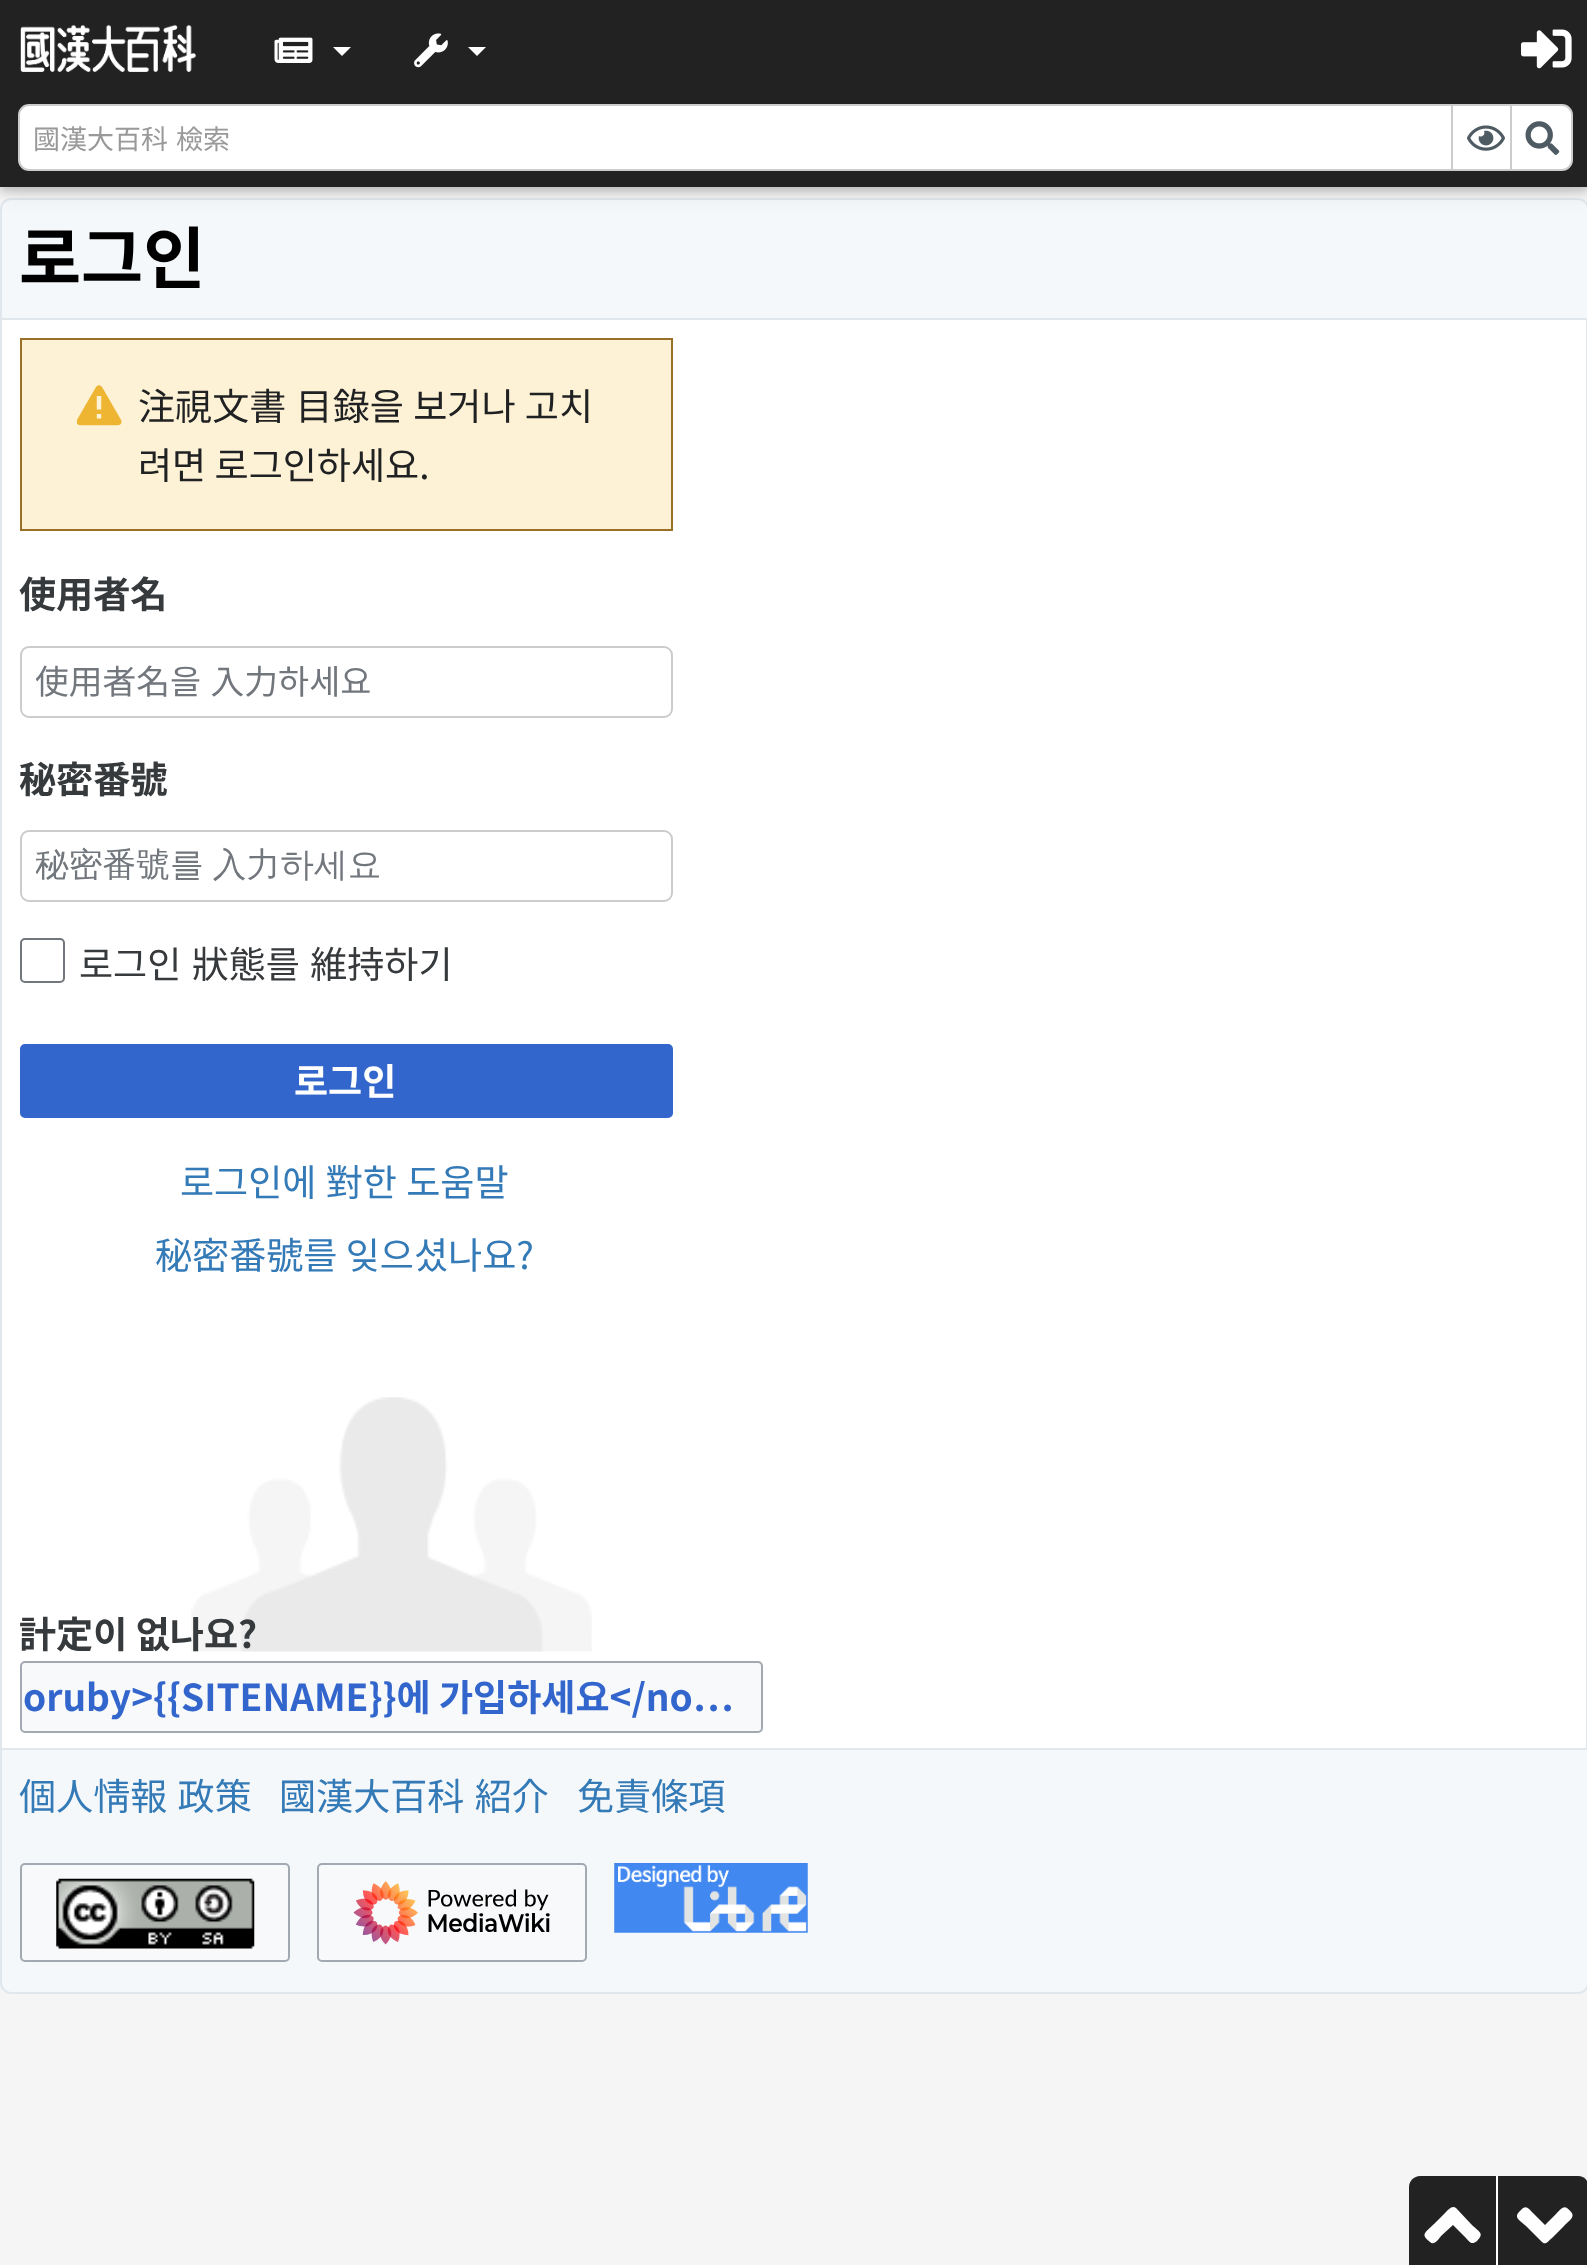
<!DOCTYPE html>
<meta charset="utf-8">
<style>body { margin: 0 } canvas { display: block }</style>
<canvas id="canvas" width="1587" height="2265"></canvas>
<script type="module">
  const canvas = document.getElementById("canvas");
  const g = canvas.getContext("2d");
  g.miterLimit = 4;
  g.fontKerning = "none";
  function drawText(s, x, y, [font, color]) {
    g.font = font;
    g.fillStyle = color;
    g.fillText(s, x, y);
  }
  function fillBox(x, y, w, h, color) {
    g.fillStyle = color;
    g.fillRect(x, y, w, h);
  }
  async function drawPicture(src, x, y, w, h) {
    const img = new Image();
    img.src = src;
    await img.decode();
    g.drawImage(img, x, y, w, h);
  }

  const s1 = ["27px Noto Sans CJK KR", "#999999"];
  const s2 = ["bold 67.5px Noto Sans CJK KR", "#000000"];
  const s3 = ["37.1px Noto Sans CJK KR", "#202122"];
  const s4 = ["bold 37.1px Noto Sans CJK KR", "#373A3C"];
  const s5 = ["33.75px Noto Sans CJK KR", "#72777D"];
  const s6 = ["500 33.75px WenQuanYi Zen Hei", "#72777D"];
  const s7 = ["37.1px Noto Sans CJK KR", "#373A3C"];
  const s8 = ["bold 37.1px Noto Sans CJK KR", "#FFFFFF"];
  const s9 = ["37.1px Noto Sans CJK KR", "#337AB7"];
  const s10 = ["bold 37.1px Noto Sans CJK KR", "#3366CC"];

  fillBox(0, 0, 1587, 2265, "#F5F5F5");
  g.fillStyle = "#F5F8FA";
  g.beginPath();
  g.moveTo(11, 199);
  g.lineTo(1578, 199);
  g.bezierCurveTo(1583.5, 199, 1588, 203.5, 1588, 209);
  g.lineTo(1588, 319);
  g.lineTo(1, 319);
  g.lineTo(1, 209);
  g.bezierCurveTo(1, 203.5, 5.5, 199, 11, 199);
  g.closePath();
  g.fill();
  g.strokeStyle = "#E1E8ED";
  g.lineWidth = 2;
  g.stroke();
  g.fillStyle = "rgba(0, 0, 0, 0.12)";
  g.filter = "blur(11px)";
  g.beginPath();
  g.rect(0, 5, 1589, 186);
  g.fill();
  g.filter = "none";
  g.fillStyle = "rgba(0, 0, 0, 0.16)";
  g.filter = "blur(4.5px)";
  g.beginPath();
  g.rect(0, 5, 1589, 186);
  g.fill();
  g.filter = "none";
  fillBox(0, 0, 1587, 187, "#222222");
  await drawPicture("pic1.png", 20, 24, 176, 48);
  await drawPicture("pic2.png", 274, 37, 39, 26);
  g.fillStyle = "#FFFFFF";
  g.beginPath();
  g.moveTo(333, 47);
  g.lineTo(351, 47);
  g.lineTo(342, 56);
  g.closePath();
  g.fill();
  await drawPicture("pic3.png", 414, 33, 34, 35);
  g.beginPath();
  g.moveTo(468, 47);
  g.lineTo(486, 47);
  g.lineTo(477, 56);
  g.closePath();
  g.fill();
  await drawPicture("pic4.png", 1521, 29, 51, 40);
  g.beginPath();
  g.roundRect(19, 105, 1434, 65, [10, 0, 0, 10]);
  g.fill();
  g.strokeStyle = "#CCCCCC";
  g.stroke();
  g.wordSpacing = "2px";
  drawText("國漢大百科 檢索", 33, 149, s1);
  g.fillStyle = "#FFFFFF";
  g.beginPath();
  g.rect(1452, 105, 59, 65);
  g.fill();
  g.stroke();
  await drawPicture("pic5.png", 1467, 125, 38, 26);
  g.beginPath();
  g.roundRect(1511, 105, 61, 65, [0, 10, 10, 0]);
  g.fill();
  g.stroke();
  await drawPicture("pic6.png", 1525, 121, 35, 34);
  g.wordSpacing = "0px";
  drawText("로그인", 19, 283, s2);
  fillBox(2, 320, 1584, 1428, "#FFFFFF");
  fillBox(1586, 320, 1, 1428, "#E1E8ED");
  fillBox(0, 320, 2, 1428, "#E1E8ED");
  g.fillStyle = "#FDF2D5";
  g.beginPath();
  g.rect(21, 339, 651, 191);
  g.fill();
  g.strokeStyle = "#987027";
  g.stroke();
  await drawPicture("pic7.png", 77, 385, 45, 41);
  g.wordSpacing = "1px";
  drawText("注視文書 目錄을 보거나 고치", 138, 420, s3);
  g.wordSpacing = "0px";
  drawText("려면 로그인하세요.", 138, 479, s3);
  drawText("使用者名", 19, 608, s4);
  g.beginPath();
  g.roundRect(21, 647, 651, 70, 8);
  g.strokeStyle = "#CCCCCC";
  g.stroke();
  g.wordSpacing = "2px";
  drawText("使用者名을 入力하세요", 35, 694, s5);
  g.wordSpacing = "0px";
  drawText("秘密番號", 19, 793, s4);
  g.beginPath();
  g.roundRect(21, 831, 651, 70, 8);
  g.stroke();
  g.save();
  g.beginPath();
  g.rect(36, 846, 621, 43);
  g.clip();
  g.wordSpacing = "-1px";
  drawText("秘密番號를 入力하세요", 35, 876, s6);
  g.restore();
  g.beginPath();
  g.roundRect(21, 939, 43, 43, 4);
  g.strokeStyle = "#72777D";
  g.stroke();
  g.wordSpacing = "2px";
  drawText("로그인 狀態를 維持하기", 79, 978, s7);
  g.fillStyle = "#3366CC";
  g.beginPath();
  g.roundRect(21, 1045, 651, 72, 4);
  g.fill();
  g.strokeStyle = "#3366CC";
  g.stroke();
  g.wordSpacing = "0px";
  drawText("로그인", 294, 1095, s8);
  g.wordSpacing = "1px";
  drawText("로그인에 對한 도움말", 180, 1196, s9);
  g.wordSpacing = "0px";
  drawText("秘密番號를 잊으셨나요?", 155, 1269, s9);
  await drawPicture("pic8.png", 191, 1397, 401, 255);
  drawText("計定이 없나요?", 19, 1648, s4);
  g.fillStyle = "#F8F9FA";
  g.beginPath();
  g.roundRect(21, 1662, 741, 70, 4);
  g.fill();
  g.strokeStyle = "#A2A9B1";
  g.stroke();
  drawText("oruby>{{SITENAME}}에 가입하세요<\/no…", 23, 1711, s10);
  g.fillStyle = "#F5F8FA";
  g.beginPath();
  g.moveTo(1, 1749);
  g.lineTo(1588, 1749);
  g.lineTo(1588, 1983);
  g.bezierCurveTo(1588, 1988.5, 1583.5, 1993, 1578, 1993);
  g.lineTo(11, 1993);
  g.bezierCurveTo(5.5, 1993, 1, 1988.5, 1, 1983);
  g.closePath();
  g.fill();
  g.strokeStyle = "#E1E8ED";
  g.stroke();
  g.wordSpacing = "2px";
  drawText("個人情報 政策", 19, 1810, s9);
  drawText("國漢大百科 紹介", 279, 1810, s9);
  g.wordSpacing = "0px";
  drawText("免責條項", 577, 1810, s9);
  g.fillStyle = "#F8F9FA";
  g.beginPath();
  g.roundRect(21, 1864, 268, 97, 4);
  g.fill();
  g.strokeStyle = "#A2A9B1";
  g.stroke();
  await drawPicture("pic9.png", 56, 1878, 199, 71);
  g.beginPath();
  g.roundRect(318, 1864, 268, 97, 4);
  g.fill();
  g.stroke();
  await drawPicture("pic10.png", 353, 1881, 197, 64);
  await drawPicture("pic11.png", 614, 1863, 194, 70);
  g.fillStyle = "#222222";
  g.beginPath();
  g.moveTo(1420, 2176);
  g.lineTo(1578, 2176);
  g.bezierCurveTo(1584, 2176, 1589, 2181, 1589, 2187);
  g.lineTo(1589, 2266);
  g.lineTo(1409, 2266);
  g.lineTo(1409, 2187);
  g.bezierCurveTo(1409, 2181, 1414, 2176, 1420, 2176);
  g.closePath();
  g.fill();
  fillBox(1496, 2176, 2, 89, "#FFFFFF");
  g.beginPath();
  g.moveTo(1456, 2208);
  g.lineTo(1471, 2224);
  g.bezierCurveTo(1479, 2232, 1485, 2233, 1477, 2241);
  g.bezierCurveTo(1471, 2246, 1469, 2241, 1464, 2236);
  g.lineTo(1453, 2225);
  g.lineTo(1441, 2236);
  g.bezierCurveTo(1439, 2239, 1434, 2246, 1430, 2242);
  g.bezierCurveTo(1420, 2234, 1425, 2233, 1434, 2224);
  g.lineTo(1446, 2212);
  g.bezierCurveTo(1448, 2210, 1452, 2205, 1456, 2208);
  g.closePath();
  g.fill();
  g.beginPath();
  g.moveTo(1542, 2242);
  g.lineTo(1526, 2226);
  g.bezierCurveTo(1518, 2219, 1513, 2217, 1521, 2210);
  g.bezierCurveTo(1526, 2204, 1529, 2209, 1534, 2214);
  g.lineTo(1545, 2225);
  g.lineTo(1556, 2214);
  g.bezierCurveTo(1558, 2212, 1563, 2205, 1567, 2208);
  g.bezierCurveTo(1577, 2216, 1572, 2218, 1564, 2226);
  g.lineTo(1552, 2238);
  g.bezierCurveTo(1549, 2240, 1546, 2246, 1542, 2242);
  g.closePath();
  g.fill();
</script>
